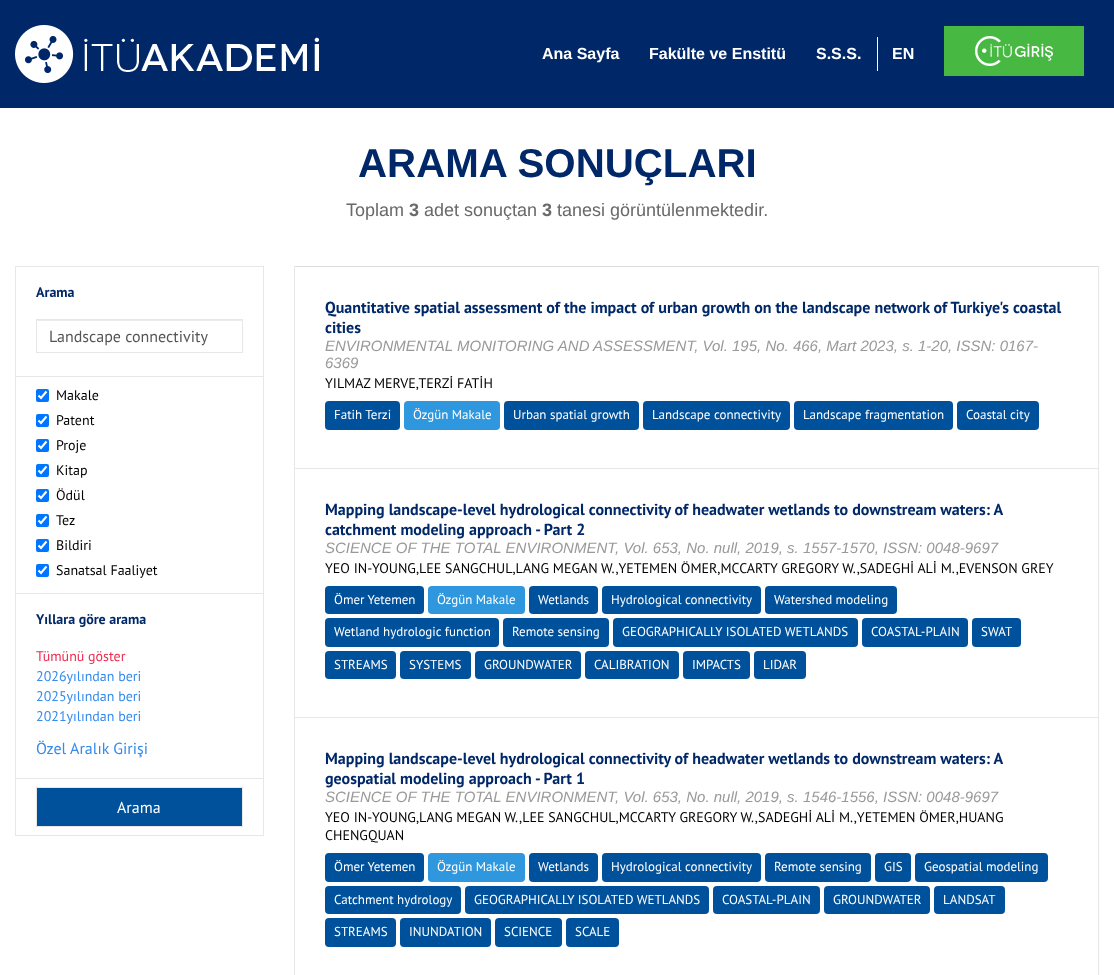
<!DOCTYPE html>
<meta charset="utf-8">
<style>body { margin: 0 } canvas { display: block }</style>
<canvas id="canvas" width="1114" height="975"></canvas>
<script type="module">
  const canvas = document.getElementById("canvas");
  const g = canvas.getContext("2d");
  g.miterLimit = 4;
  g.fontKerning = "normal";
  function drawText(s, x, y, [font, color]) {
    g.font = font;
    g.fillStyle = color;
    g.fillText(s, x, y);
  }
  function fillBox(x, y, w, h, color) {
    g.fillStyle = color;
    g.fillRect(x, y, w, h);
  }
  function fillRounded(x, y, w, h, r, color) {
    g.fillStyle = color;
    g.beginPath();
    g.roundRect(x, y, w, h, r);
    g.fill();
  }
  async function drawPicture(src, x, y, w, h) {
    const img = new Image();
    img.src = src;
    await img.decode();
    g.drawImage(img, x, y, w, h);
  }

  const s1 = ["bold 16px Liberation Sans", "#FFFFFF"];
  const s2 = ["bold 40.25px Liberation Sans", "#002868"];
  const s3 = ["18px Liberation Sans", "#696969"];
  const s4 = ["bold 18px Liberation Sans", "#696969"];
  const s5 = ["bold 14px PT Sans", "#002868"];
  const s6 = ["16px PT Sans", "#555555"];
  const s7 = ["14px PT Sans", "#000000"];
  const s8 = ["14px PT Sans", "#ED2A4F"];
  const s9 = ["14px PT Sans", "#358AED"];
  const s10 = ["16px PT Sans", "#358AED"];
  const s11 = ["16px PT Sans", "#FFFFFF"];
  const s12 = ["bold 16px PT Sans", "#002868"];
  const s13 = ["italic 15px Liberation Sans", "#999999"];
  const s14 = ["13px PT Sans", "#FFFFFF"];

  fillBox(0, 0, 1114, 975, "#FFFFFF");
  fillBox(0, 0, 1114, 108, "#002868");
  await drawPicture("pic1.png", 15, 25, 304, 58);
  drawText("Ana Sayfa", 542, 59, s1);
  drawText("Fakülte ve Enstitü", 649, 59, s1);
  drawText("S.S.S.", 816, 59, s1);
  fillBox(877, 37, 1, 34, "#FFFFFF");
  drawText("EN", 892, 59, s1);
  await drawPicture("pic2.png", 944, 26, 140, 50);
  drawText("ARAMA SONUÇLARI", 358, 177, s2);
  drawText("Toplam", 346, 216, s3);
  drawText("3", 409, 216, s4);
  drawText("adet sonuçtan", 424, 216, s3);
  drawText("3", 542, 216, s4);
  drawText("tanesi görüntülenmektedir.", 557, 216, s3);
  fillBox(15, 266, 249, 1, "#E7E7E7");
  fillBox(15, 376, 249, 1, "#E7E7E7");
  fillBox(15, 593, 249, 1, "#E7E7E7");
  fillBox(15, 778, 249, 1, "#E7E7E7");
  fillBox(263, 778, 1, 58, "#E7E7E7");
  fillBox(263, 593, 1, 186, "#E7E7E7");
  fillBox(263, 376, 1, 218, "#E7E7E7");
  fillBox(263, 266, 1, 111, "#E7E7E7");
  fillBox(15, 835, 249, 1, "#E7E7E7");
  fillBox(15, 778, 1, 58, "#E7E7E7");
  fillBox(15, 593, 1, 186, "#E7E7E7");
  fillBox(15, 376, 1, 218, "#E7E7E7");
  fillBox(15, 266, 1, 111, "#E7E7E7");
  drawText("Arama", 36, 297, s5);
  fillBox(37, 320, 205, 1, "#ECECEC");
  g.strokeStyle = "#E7E7E7";
  g.strokeRect(36.5, 319.5, 206, 33);
  drawText("Landscape connectivity", 49, 342, s6);
  fillRounded(36, 389, 13, 13, 2, "#0075FF");
  g.beginPath();
  g.moveTo(38.5, 395.5);
  g.lineTo(41, 398);
  g.lineTo(46.5, 391.5);
  g.strokeStyle = "#FFFFFF";
  g.lineWidth = 2.1;
  g.stroke();
  drawText("Makale", 56, 400, s7);
  fillRounded(36, 414, 13, 13, 2, "#0075FF");
  g.beginPath();
  g.moveTo(38.5, 420.5);
  g.lineTo(41, 423);
  g.lineTo(46.5, 416.5);
  g.stroke();
  drawText("Patent", 56, 425, s7);
  fillRounded(36, 439, 13, 13, 2, "#0075FF");
  g.beginPath();
  g.moveTo(38.5, 445.5);
  g.lineTo(41, 448);
  g.lineTo(46.5, 441.5);
  g.stroke();
  drawText("Proje", 56, 450, s7);
  fillRounded(36, 464, 13, 13, 2, "#0075FF");
  g.beginPath();
  g.moveTo(38.5, 470.5);
  g.lineTo(41, 473);
  g.lineTo(46.5, 466.5);
  g.stroke();
  drawText("Kitap", 56, 475, s7);
  fillRounded(36, 489, 13, 13, 2, "#0075FF");
  g.beginPath();
  g.moveTo(38.5, 495.5);
  g.lineTo(41, 498);
  g.lineTo(46.5, 491.5);
  g.stroke();
  drawText("Ödül", 56, 500, s7);
  fillRounded(36, 514, 13, 13, 2, "#0075FF");
  g.beginPath();
  g.moveTo(38.5, 520.5);
  g.lineTo(41, 523);
  g.lineTo(46.5, 516.5);
  g.stroke();
  drawText("Tez", 56, 525, s7);
  fillRounded(36, 539, 13, 13, 2, "#0075FF");
  g.beginPath();
  g.moveTo(38.5, 545.5);
  g.lineTo(41, 548);
  g.lineTo(46.5, 541.5);
  g.stroke();
  drawText("Bildiri", 56, 550, s7);
  fillRounded(36, 564, 13, 13, 2, "#0075FF");
  g.beginPath();
  g.moveTo(38.5, 570.5);
  g.lineTo(41, 573);
  g.lineTo(46.5, 566.5);
  g.stroke();
  drawText("Sanatsal Faaliyet", 56, 575, s7);
  drawText("Yıllara göre arama", 36, 624, s5);
  drawText("Tümünü göster", 36, 661, s8);
  drawText("2026yılından beri", 36, 681, s9);
  drawText("2025yılından beri", 36, 701, s9);
  drawText("2021yılından beri", 36, 721, s9);
  drawText("Özel Aralık Girişi", 36, 754, s10);
  g.fillStyle = "#00519B";
  g.beginPath();
  g.rect(36.5, 787.5, 206, 39);
  g.fill();
  g.strokeStyle = "#E7E7E7";
  g.lineWidth = 1;
  g.stroke();
  drawText("Arama", 117, 813, s11);
  fillBox(294, 266, 805, 1, "#DDDDDD");
  fillBox(1098, 468, 1, 507, "#E7E7E7");
  fillBox(1098, 266, 1, 203, "#E7E7E7");
  fillBox(294, 717, 1, 258, "#E7E7E7");
  fillBox(294, 717, 805, 1, "#E7E7E7");
  fillBox(294, 468, 1, 250, "#E7E7E7");
  fillBox(294, 468, 805, 1, "#E7E7E7");
  fillBox(294, 266, 1, 203, "#E7E7E7");
  drawText("Quantitative spatial assessment of the impact of urban growth on the landscape network of Turkiye's coastal", 325, 313, s12);
  drawText("cities", 325, 333, s12);
  drawText("ENVIRONMENTAL MONITORING AND ASSESSMENT, Vol. 195, No. 466, Mart 2023, s. 1-20, ISSN: 0167-", 325, 351, s13);
  drawText("6369", 325, 368, s13);
  drawText("YILMAZ MERVE,TERZİ FATİH", 325, 388, s7);
  fillRounded(325, 401, 75, 29, 4, "#00519B");
  drawText("Fatih Terzi", 334, 419, s14);
  fillRounded(404, 401, 96, 29, 4, "#2F97DE");
  drawText("Özgün Makale", 413, 419, s14);
  fillRounded(504, 401, 135, 29, 4, "#00519B");
  drawText("Urban spatial growth", 513, 419, s14);
  fillRounded(643, 401, 147, 29, 4, "#00519B");
  drawText("Landscape connectivity", 652, 419, s14);
  fillRounded(794, 401, 159, 29, 4, "#00519B");
  drawText("Landscape fragmentation", 803, 419, s14);
  fillRounded(957, 401, 82, 29, 4, "#00519B");
  drawText("Coastal city", 966, 419, s14);
  drawText("Mapping landscape-level hydrological connectivity of headwater wetlands to downstream waters: A", 325, 515, s12);
  drawText("catchment modeling approach - Part 2", 325, 535, s12);
  drawText("SCIENCE OF THE TOTAL ENVIRONMENT, Vol. 653, No. null, 2019, s. 1557-1570, ISSN: 0048-9697", 325, 553, s13);
  drawText("YEO IN-YOUNG,LEE SANGCHUL,LANG MEGAN W.,YETEMEN ÖMER,MCCARTY GREGORY W.,SADEGHİ ALİ M.,EVENSON GREY", 325, 573, s7);
  fillRounded(325, 586, 99, 28, 4, "#00519B");
  drawText("Ömer Yetemen", 334, 604, s14);
  fillRounded(428, 586, 97, 28, 4, "#2F97DE");
  drawText("Özgün Makale", 437, 604, s14);
  fillRounded(529, 586, 69, 28, 4, "#00519B");
  drawText("Wetlands", 538, 604, s14);
  fillRounded(602, 586, 159, 28, 4, "#00519B");
  drawText("Hydrological connectivity", 611, 604, s14);
  fillRounded(765, 586, 132, 28, 4, "#00519B");
  drawText("Watershed modeling", 774, 604, s14);
  fillRounded(325, 618, 174, 29, 4, "#00519B");
  drawText("Wetland hydrologic function", 334, 636, s14);
  fillRounded(503, 618, 106, 29, 4, "#00519B");
  drawText("Remote sensing", 512, 636, s14);
  fillRounded(613, 618, 245, 29, 4, "#00519B");
  drawText("GEOGRAPHICALLY ISOLATED WETLANDS", 622, 636, s14);
  fillRounded(862, 618, 106, 29, 4, "#00519B");
  drawText("COASTAL-PLAIN", 871, 636, s14);
  fillRounded(972, 618, 49, 29, 4, "#00519B");
  drawText("SWAT", 981, 636, s14);
  fillRounded(325, 651, 71, 28, 4, "#00519B");
  drawText("STREAMS", 334, 669, s14);
  fillRounded(400, 651, 71, 28, 4, "#00519B");
  drawText("SYSTEMS", 409, 669, s14);
  fillRounded(475, 651, 106, 28, 4, "#00519B");
  drawText("GROUNDWATER", 484, 669, s14);
  fillRounded(585, 651, 94, 28, 4, "#00519B");
  drawText("CALIBRATION", 594, 669, s14);
  fillRounded(683, 651, 67, 28, 4, "#00519B");
  drawText("IMPACTS", 692, 669, s14);
  fillRounded(754, 651, 52, 28, 4, "#00519B");
  drawText("LIDAR", 763, 669, s14);
  drawText("Mapping landscape-level hydrological connectivity of headwater wetlands to downstream waters: A", 325, 764, s12);
  drawText("geospatial modeling approach - Part 1", 325, 784, s12);
  drawText("SCIENCE OF THE TOTAL ENVIRONMENT, Vol. 653, No. null, 2019, s. 1546-1556, ISSN: 0048-9697", 325, 802, s13);
  drawText("YEO IN-YOUNG,LANG MEGAN W.,LEE SANGCHUL,MCCARTY GREGORY W.,SADEGHİ ALİ M.,YETEMEN ÖMER,HUANG", 325, 822, s7);
  drawText("CHENGQUAN", 325, 840, s7);
  fillRounded(325, 853, 99, 29, 4, "#00519B");
  drawText("Ömer Yetemen", 334, 871, s14);
  fillRounded(428, 853, 97, 29, 4, "#2F97DE");
  drawText("Özgün Makale", 437, 871, s14);
  fillRounded(529, 853, 69, 29, 4, "#00519B");
  drawText("Wetlands", 538, 871, s14);
  fillRounded(602, 853, 159, 29, 4, "#00519B");
  drawText("Hydrological connectivity", 611, 871, s14);
  fillRounded(765, 853, 106, 29, 4, "#00519B");
  drawText("Remote sensing", 774, 871, s14);
  fillRounded(875, 853, 36, 29, 4, "#00519B");
  drawText("GIS", 884, 871, s14);
  fillRounded(915, 853, 133, 29, 4, "#00519B");
  drawText("Geospatial modeling", 924, 871, s14);
  fillRounded(325, 886, 136, 28, 4, "#00519B");
  drawText("Catchment hydrology", 334, 904, s14);
  fillRounded(465, 886, 244, 28, 4, "#00519B");
  drawText("GEOGRAPHICALLY ISOLATED WETLANDS", 474, 904, s14);
  fillRounded(713, 886, 107, 28, 4, "#00519B");
  drawText("COASTAL-PLAIN", 722, 904, s14);
  fillRounded(824, 886, 106, 28, 4, "#00519B");
  drawText("GROUNDWATER", 833, 904, s14);
  fillRounded(934, 886, 71, 28, 4, "#00519B");
  drawText("LANDSAT", 943, 904, s14);
  fillRounded(325, 918, 71, 29, 4, "#00519B");
  drawText("STREAMS", 334, 936, s14);
  fillRounded(400, 918, 91, 29, 4, "#00519B");
  drawText("INUNDATION", 409, 936, s14);
  fillRounded(495, 918, 67, 29, 4, "#00519B");
  drawText("SCIENCE", 504, 936, s14);
  fillRounded(566, 918, 53, 29, 4, "#00519B");
  drawText("SCALE", 575, 936, s14);
</script>
